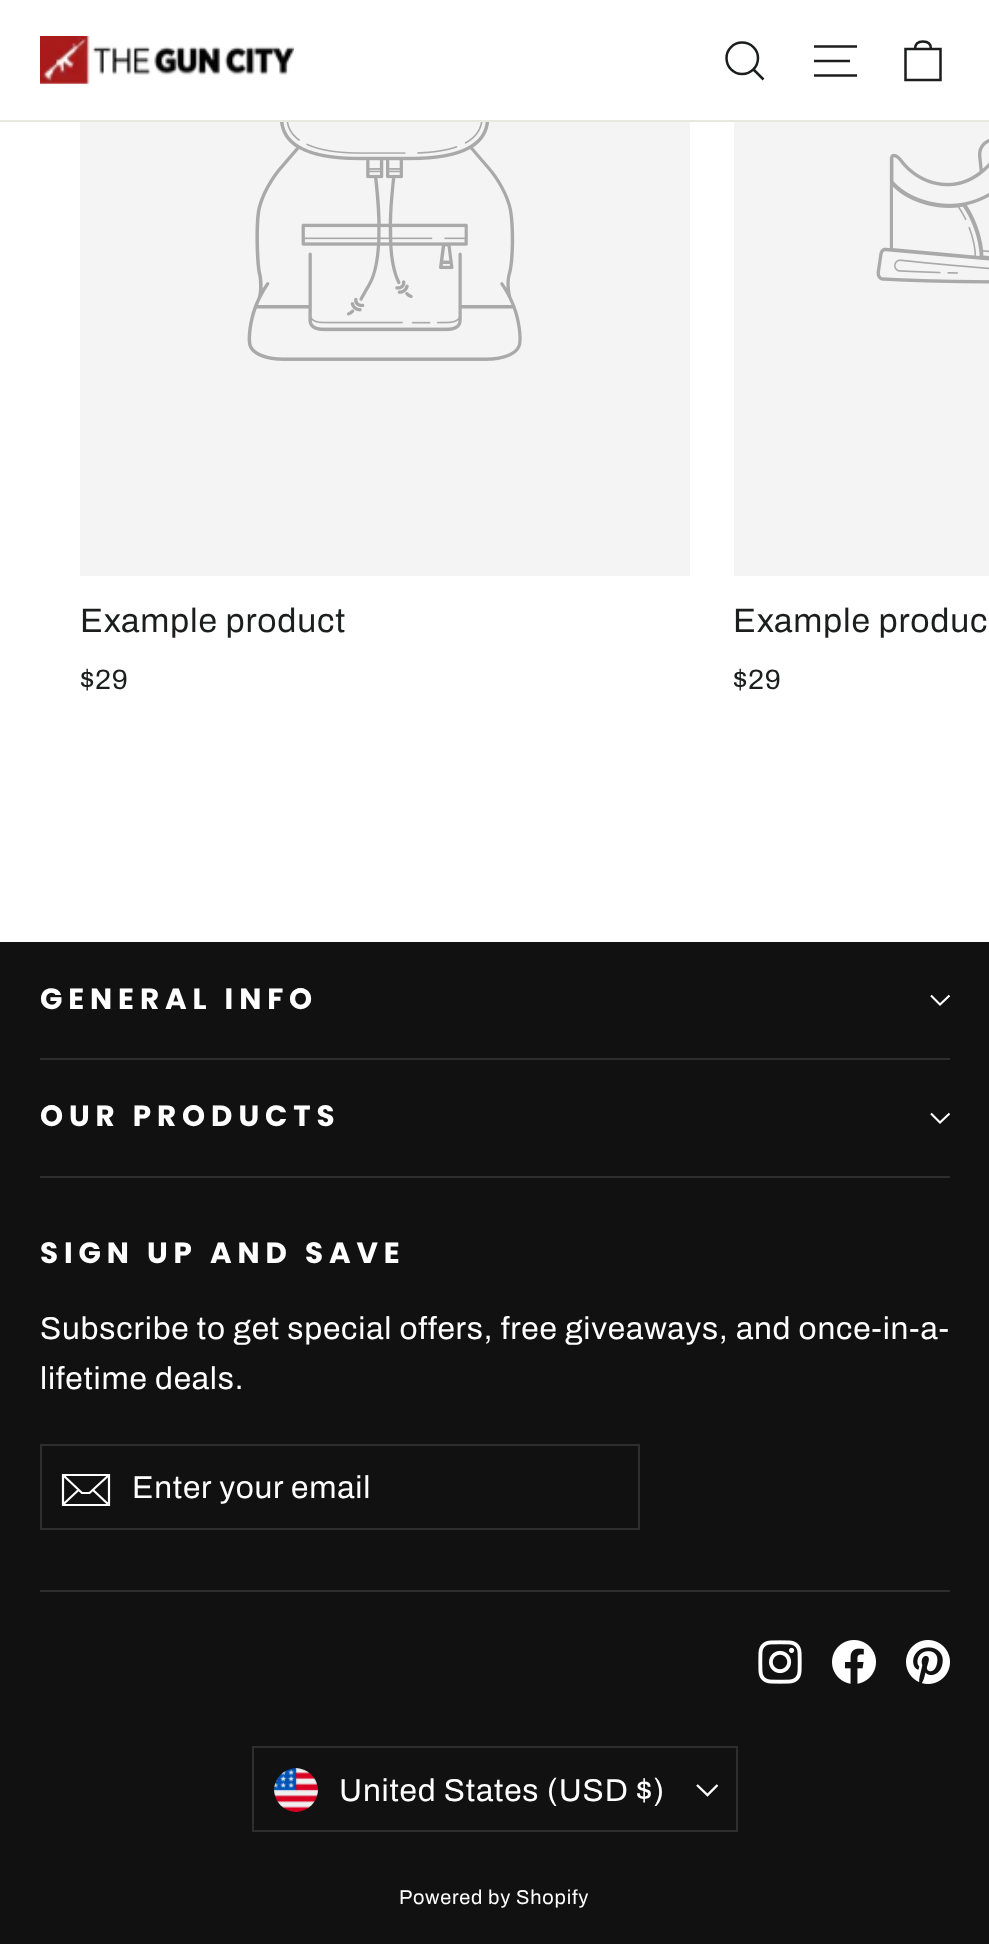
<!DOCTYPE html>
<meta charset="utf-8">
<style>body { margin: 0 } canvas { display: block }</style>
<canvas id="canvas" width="989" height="1944"></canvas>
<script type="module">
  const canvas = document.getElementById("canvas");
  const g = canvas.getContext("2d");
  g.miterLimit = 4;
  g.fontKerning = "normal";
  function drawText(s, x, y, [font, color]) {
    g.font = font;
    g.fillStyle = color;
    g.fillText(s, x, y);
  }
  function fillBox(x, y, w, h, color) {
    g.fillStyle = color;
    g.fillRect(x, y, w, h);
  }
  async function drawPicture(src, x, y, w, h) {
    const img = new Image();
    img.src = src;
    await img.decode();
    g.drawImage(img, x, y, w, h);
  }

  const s1 = ["33.75px Archivo", "#1C1D1D"];
  const s2 = ["28px Archivo", "#1C1D1D"];
  const s3 = ["bold 29.4px Poppins", "#FFFFFF"];
  const s4 = ["31.6px Archivo", "#FFFFFF"];
  const s5 = ["20px Archivo", "#FFFFFF"];

  fillBox(0, 0, 989, 1944, "#FFFFFF");
  fillBox(0, 120, 989, 2, "#E8E8E1");
  await drawPicture("pic1.png", 40, 36, 254, 48);
  g.beginPath();
  g.moveTo(758, 58);
  g.bezierCurveTo(758, 67, 751, 74, 742, 74);
  g.bezierCurveTo(733.5, 74, 726.5, 67, 726.5, 58);
  g.bezierCurveTo(726.5, 49.5, 733.5, 42.5, 742, 42.5);
  g.bezierCurveTo(751, 42.5, 758, 49.5, 758, 58);
  g.closePath();
  g.moveTo(763.5, 79.5);
  g.lineTo(753.5, 69.5);
  g.strokeStyle = "#1C1D1D";
  g.lineWidth = 2.5;
  g.stroke();
  g.beginPath();
  g.moveTo(814, 46.5);
  g.lineTo(857, 46.5);
  g.moveTo(814, 61);
  g.lineTo(850, 61);
  g.moveTo(814, 75.5);
  g.lineTo(857, 75.5);
  g.stroke();
  g.beginPath();
  g.moveTo(905.5, 49);
  g.lineTo(940.5, 49);
  g.lineTo(940.5, 80);
  g.lineTo(905.5, 80);
  g.closePath();
  g.moveTo(915, 49);
  g.bezierCurveTo(915, 43, 918.5, 41.5, 923, 41.5);
  g.bezierCurveTo(927.5, 41.5, 931, 43, 931, 49);
  g.stroke();
  fillBox(80, 122, 610, 454, "#F4F4F4");
  await drawPicture("pic2.png", 247, 122, 275, 239);
  g.letterSpacing = "0.8px";
  drawText("Example product", 80, 632, s1);
  drawText("$29", 80, 689, s2);
  fillBox(734, 122, 255, 454, "#F4F4F4");
  await drawPicture("pic3.png", 876, 139, 113, 145);
  drawText("Example produc", 733, 632, s1);
  drawText("$29", 733, 689, s2);
  fillBox(0, 942, 989, 1002, "#111111");
  g.letterSpacing = "5.9px";
  drawText("GENERAL INFO", 40, 1009, s3);
  g.beginPath();
  g.moveTo(931, 995.5);
  g.lineTo(940, 1004.5);
  g.lineTo(949.5, 995.5);
  g.strokeStyle = "#FFFFFF";
  g.lineWidth = 2.1;
  g.stroke();
  fillBox(40, 1058, 910, 2, "#2E2E2E");
  drawText("OUR PRODUCTS", 40, 1126, s3);
  g.beginPath();
  g.moveTo(931, 1113.5);
  g.lineTo(940, 1122.5);
  g.lineTo(949.5, 1113.5);
  g.stroke();
  fillBox(40, 1176, 910, 2, "#2E2E2E");
  drawText("SIGN UP AND SAVE", 40, 1263, s3);
  g.letterSpacing = "0.8px";
  drawText("Subscribe to get special offers, free giveaways, and once-in-a-", 40, 1339, s4);
  drawText("lifetime deals.", 40, 1389, s4);
  g.strokeStyle = "#2E2E2E";
  g.lineWidth = 2;
  g.strokeRect(41, 1445, 598, 84);
  g.beginPath();
  g.moveTo(109, 1505);
  g.lineTo(63, 1505);
  g.lineTo(63, 1475);
  g.lineTo(109, 1475);
  g.closePath();
  g.moveTo(63, 1475);
  g.lineTo(82, 1493);
  g.lineTo(89.5, 1493);
  g.lineTo(109, 1475);
  g.moveTo(78.5, 1490);
  g.lineTo(63, 1504.5);
  g.moveTo(109, 1505);
  g.lineTo(93, 1490);
  g.strokeStyle = "#FFFFFF";
  g.lineWidth = 2.2;
  g.stroke();
  drawText("Enter your email", 132, 1498, s4);
  fillBox(40, 1590, 910, 2, "#2E2E2E");
  await drawPicture("pic4.png", 758, 1640, 44, 44);
  await drawPicture("pic5.png", 832, 1640, 44, 44);
  await drawPicture("pic6.png", 906, 1640, 44, 44);
  g.strokeStyle = "#2E2E2E";
  g.lineWidth = 2;
  g.strokeRect(253, 1747, 484, 84);
  await drawPicture("pic7.png", 274, 1768, 44, 44);
  drawText("United States (USD $)", 339, 1801, s4);
  g.beginPath();
  g.moveTo(697, 1785);
  g.lineTo(707.5, 1795);
  g.lineTo(717.5, 1785);
  g.strokeStyle = "#FFFFFF";
  g.lineWidth = 2.4;
  g.stroke();
  drawText("Powered by Shopify", 399, 1904, s5);
</script>
